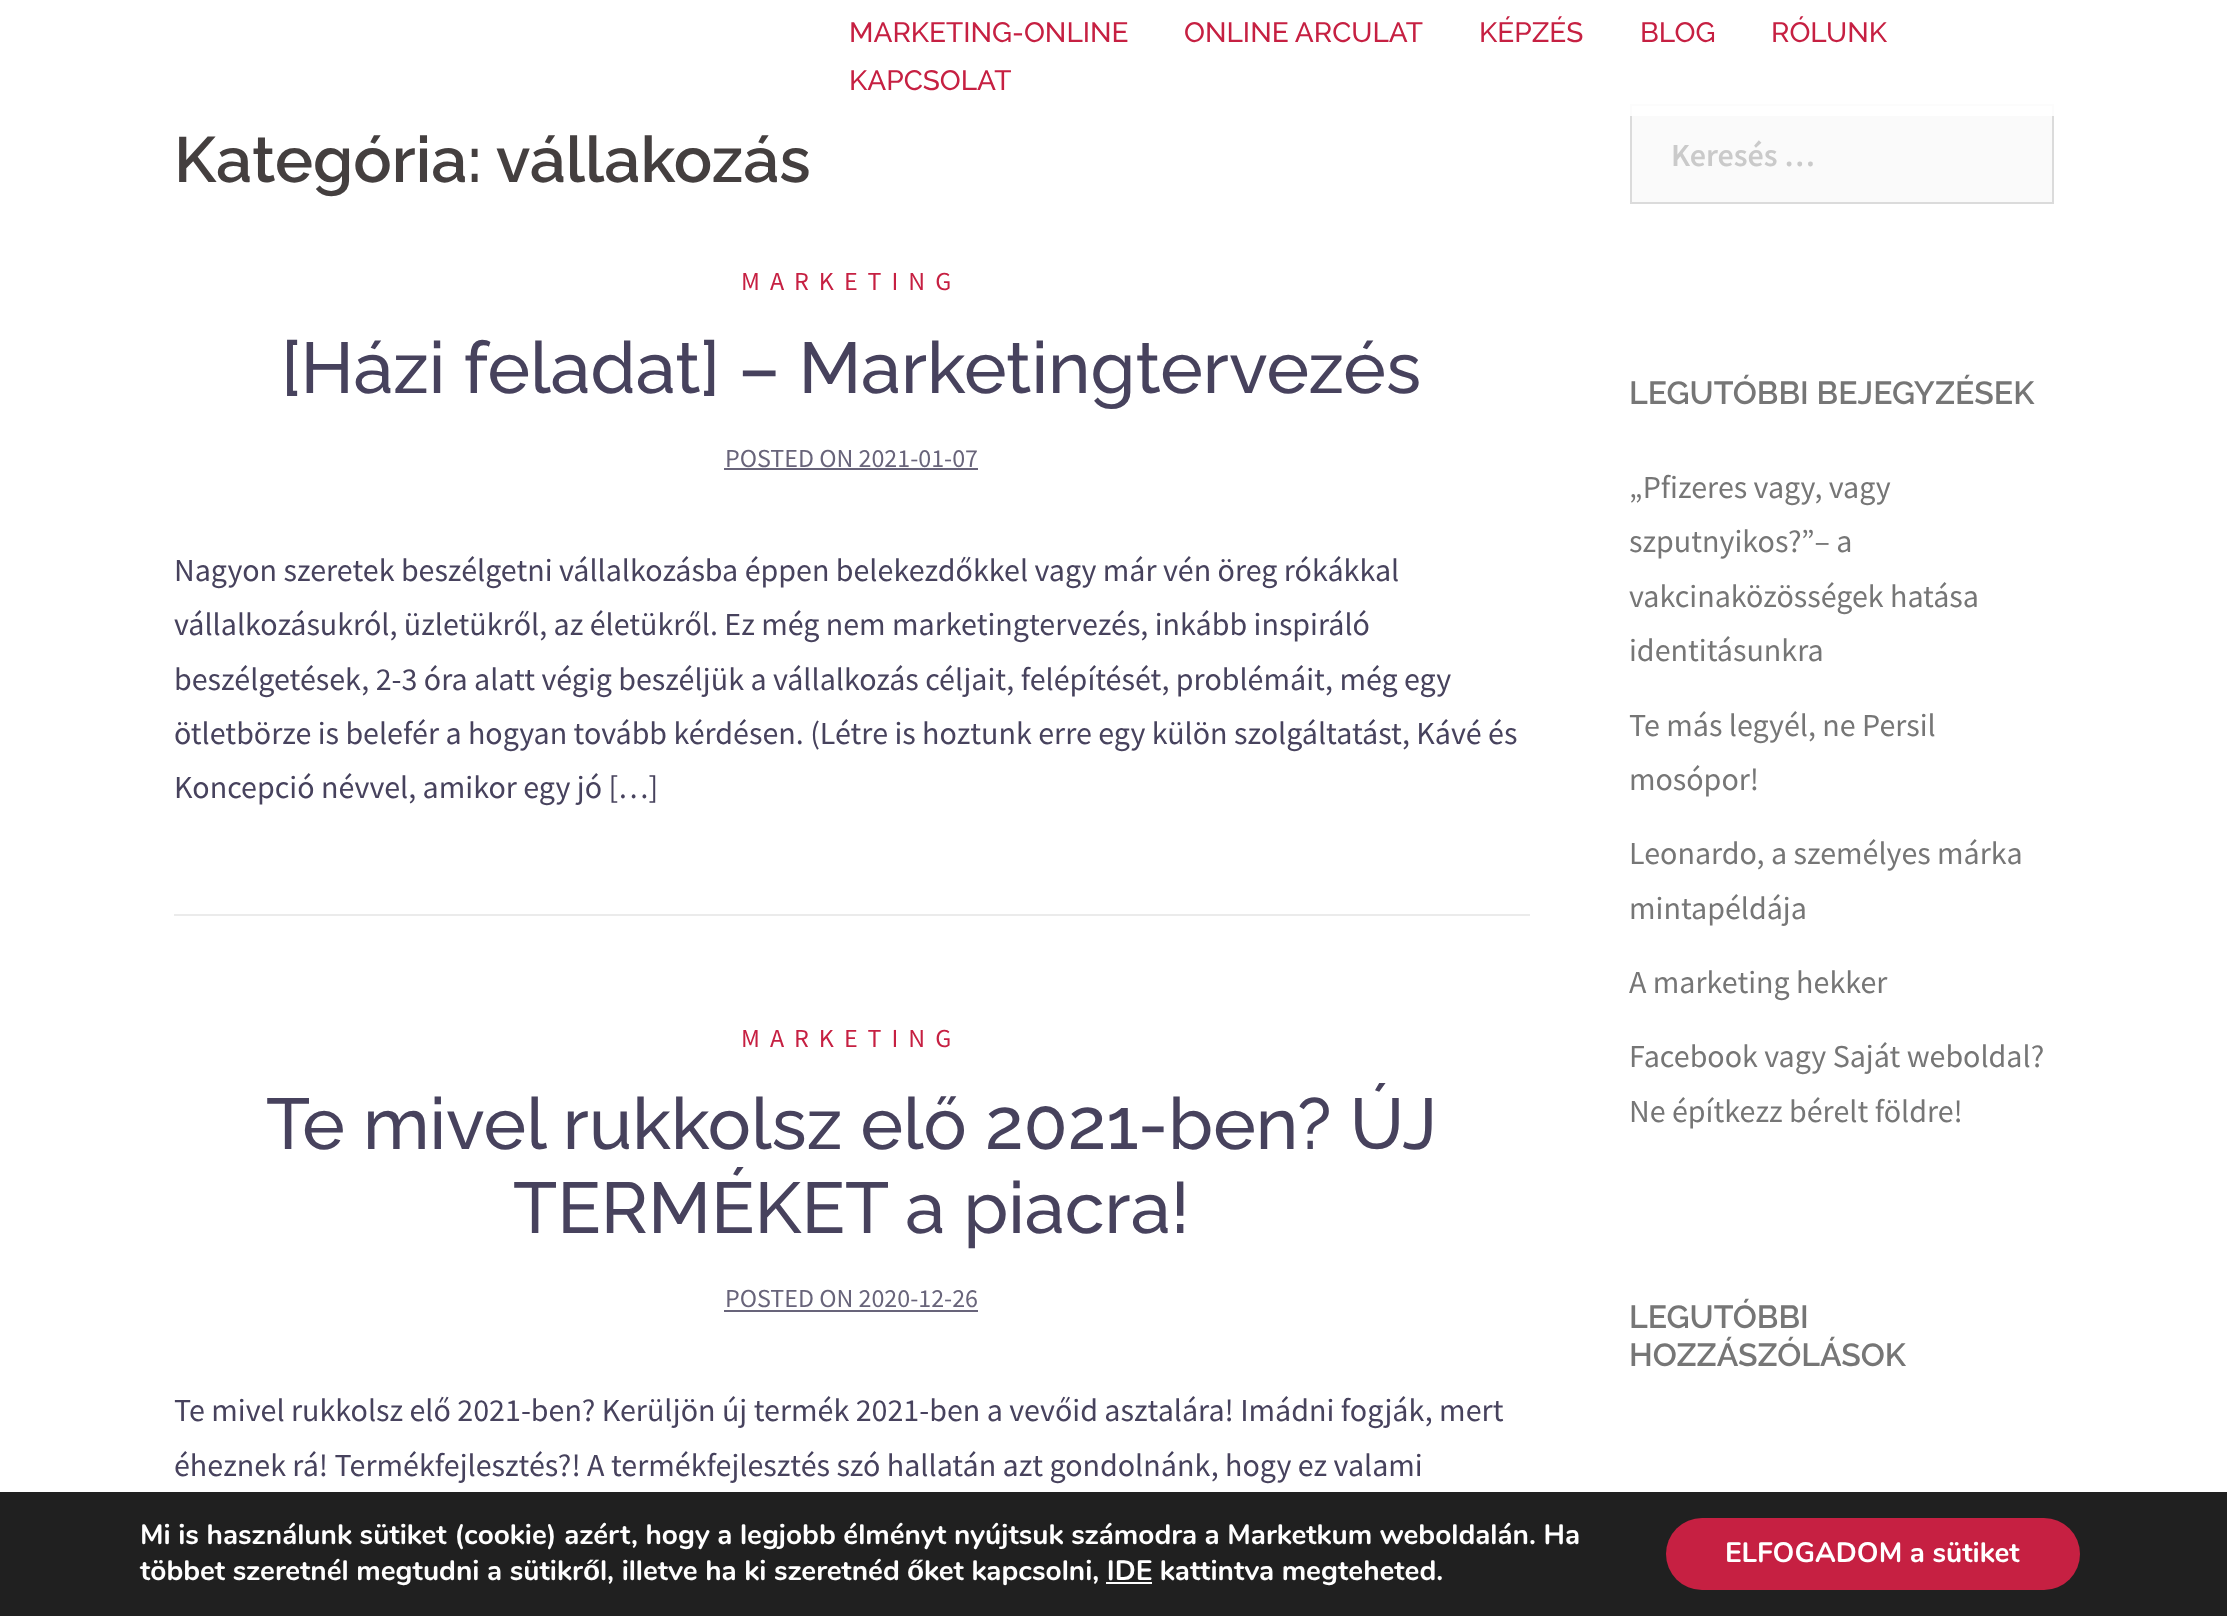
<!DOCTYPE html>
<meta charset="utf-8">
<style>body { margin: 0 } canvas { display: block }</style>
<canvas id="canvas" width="2227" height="1616"></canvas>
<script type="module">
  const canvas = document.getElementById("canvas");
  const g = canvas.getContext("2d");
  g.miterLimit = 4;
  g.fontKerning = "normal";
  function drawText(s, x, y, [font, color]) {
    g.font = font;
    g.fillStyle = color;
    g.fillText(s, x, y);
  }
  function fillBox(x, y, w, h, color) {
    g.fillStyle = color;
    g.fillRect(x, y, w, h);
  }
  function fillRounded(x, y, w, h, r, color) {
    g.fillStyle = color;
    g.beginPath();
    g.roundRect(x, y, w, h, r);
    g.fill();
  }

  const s1 = ["500 28px Raleway", "#C62042"];
  const s2 = ["600 64px Raleway", "#443F3F"];
  const s3 = ["26px Source Sans Pro", "#C62042"];
  const s4 = ["500 72px Raleway", "#47425D"];
  const s5 = ["26px Source Sans Pro", "#68647A"];
  const s6 = ["32px Source Sans Pro", "#47425D"];
  const s7 = ["600 32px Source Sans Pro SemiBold", "#CACACA"];
  const s8 = ["600 32px Raleway", "#767676"];
  const s9 = ["32px Source Sans Pro", "#767676"];
  const s10 = ["bold 28px Nunito", "#FFFFFF"];
  const s11 = ["bold 28px Liberation Sans", "#FFFFFF"];

  fillBox(0, 0, 2227, 1616, "#FFFFFF");
  g.fillStyle = "#FAFAFA";
  g.beginPath();
  g.rect(1631, 105, 422, 98);
  g.fill();
  g.strokeStyle = "#DBDBDB";
  g.lineWidth = 2;
  g.stroke();
  fillBox(1630, 104, 424, 12, "rgba(255, 255, 255, 0.9)");
  drawText("MARKETING-ONLINE", 849, 42, s1);
  drawText("ONLINE ARCULAT", 1184, 42, s1);
  drawText("KÉPZÉS", 1479, 42, s1);
  drawText("BLOG", 1640, 42, s1);
  drawText("RÓLUNK", 1771, 42, s1);
  drawText("KAPCSOLAT", 849, 90, s1);
  drawText("Kategória: vállakozás", 174, 182, s2);
  fillBox(174, 914, 1356, 2, "#EBEBEB");
  g.letterSpacing = "10px";
  drawText("MARKETING", 741, 290, s3);
  g.letterSpacing = "0px";
  drawText("[Házi feladat] – Marketingtervezés", 281, 393, s4);
  drawText("POSTED ON 2021-01-07", 725, 467, s5);
  fillBox(724, 468, 254, 2, "#68647A");
  drawText("Nagyon szeretek beszélgetni vállalkozásba éppen belekezdőkkel vagy már vén öreg rókákkal", 174, 581, s6);
  drawText("vállalkozásukról, üzletükről, az életükről. Ez még nem marketingtervezés, inkább inspiráló", 174, 635, s6);
  drawText("beszélgetések, 2-3 óra alatt végig beszéljük a vállalkozás céljait, felépítését, problémáit, még egy", 174, 690, s6);
  drawText("ötletbörze is belefér a hogyan tovább kérdésen. (Létre is hoztunk erre egy külön szolgáltatást, Kávé és", 174, 744, s6);
  drawText("Koncepció névvel, amikor egy jó […]", 174, 798, s6);
  g.letterSpacing = "10px";
  drawText("MARKETING", 741, 1047, s3);
  g.letterSpacing = "0px";
  drawText("Te mivel rukkolsz elő 2021-ben? ÚJ", 266, 1149, s4);
  drawText("TERMÉKET a piacra!", 513, 1233, s4);
  drawText("POSTED ON 2020-12-26", 725, 1307, s5);
  fillBox(724, 1310, 254, 2, "#68647A");
  drawText("Te mivel rukkolsz elő 2021-ben? Kerüljön új termék 2021-ben a vevőid asztalára! Imádni fogják, mert", 174, 1421, s6);
  drawText("éheznek rá! Termékfejlesztés?! A termékfejlesztés szó hallatán azt gondolnánk, hogy ez valami", 174, 1476, s6);
  drawText("Keresés …", 1671, 166, s7);
  drawText("LEGUTÓBBI BEJEGYZÉSEK", 1629, 404, s8);
  drawText("„Pfizeres vagy, vagy", 1629, 498, s9);
  drawText("szputnyikos?”– a", 1629, 552, s9);
  drawText("vakcinaközösségek hatása", 1629, 607, s9);
  drawText("identitásunkra", 1629, 661, s9);
  drawText("Te más legyél, ne Persil", 1629, 736, s9);
  drawText("mosópor!", 1629, 790, s9);
  drawText("Leonardo, a személyes márka", 1629, 864, s9);
  drawText("mintapéldája", 1629, 919, s9);
  drawText("A marketing hekker", 1629, 993, s9);
  drawText("Facebook vagy Saját weboldal?", 1629, 1067, s9);
  drawText("Ne építkezz bérelt földre!", 1629, 1122, s9);
  drawText("LEGUTÓBBI", 1629, 1328, s8);
  drawText("HOZZÁSZÓLÁSOK", 1629, 1366, s8);
  fillBox(0, 1492, 2227, 124, "#202020");
  drawText("Mi is használunk sütiket (cookie) azért, hogy a legjobb élményt nyújtsuk számodra a Marketkum weboldalán. Ha", 140, 1544, s10);
  drawText("többet szeretnél megtudni a sütikr", 140, 1580, s10);
  drawText("ő", 583, 1580, s11);
  drawText("l, illetve ha ki szeretnéd", 600, 1580, s10);
  drawText("ő", 907, 1580, s11);
  drawText("ket kapcsolni, IDE kattintva megteheted.", 924, 1580, s10);
  fillBox(1106, 1582, 46, 2, "#FFFFFF");
  fillRounded(1666, 1518, 414, 72, 36, "#C62042");
  drawText("ELFOGADOM a sütiket", 1725, 1562, s10);
</script>
